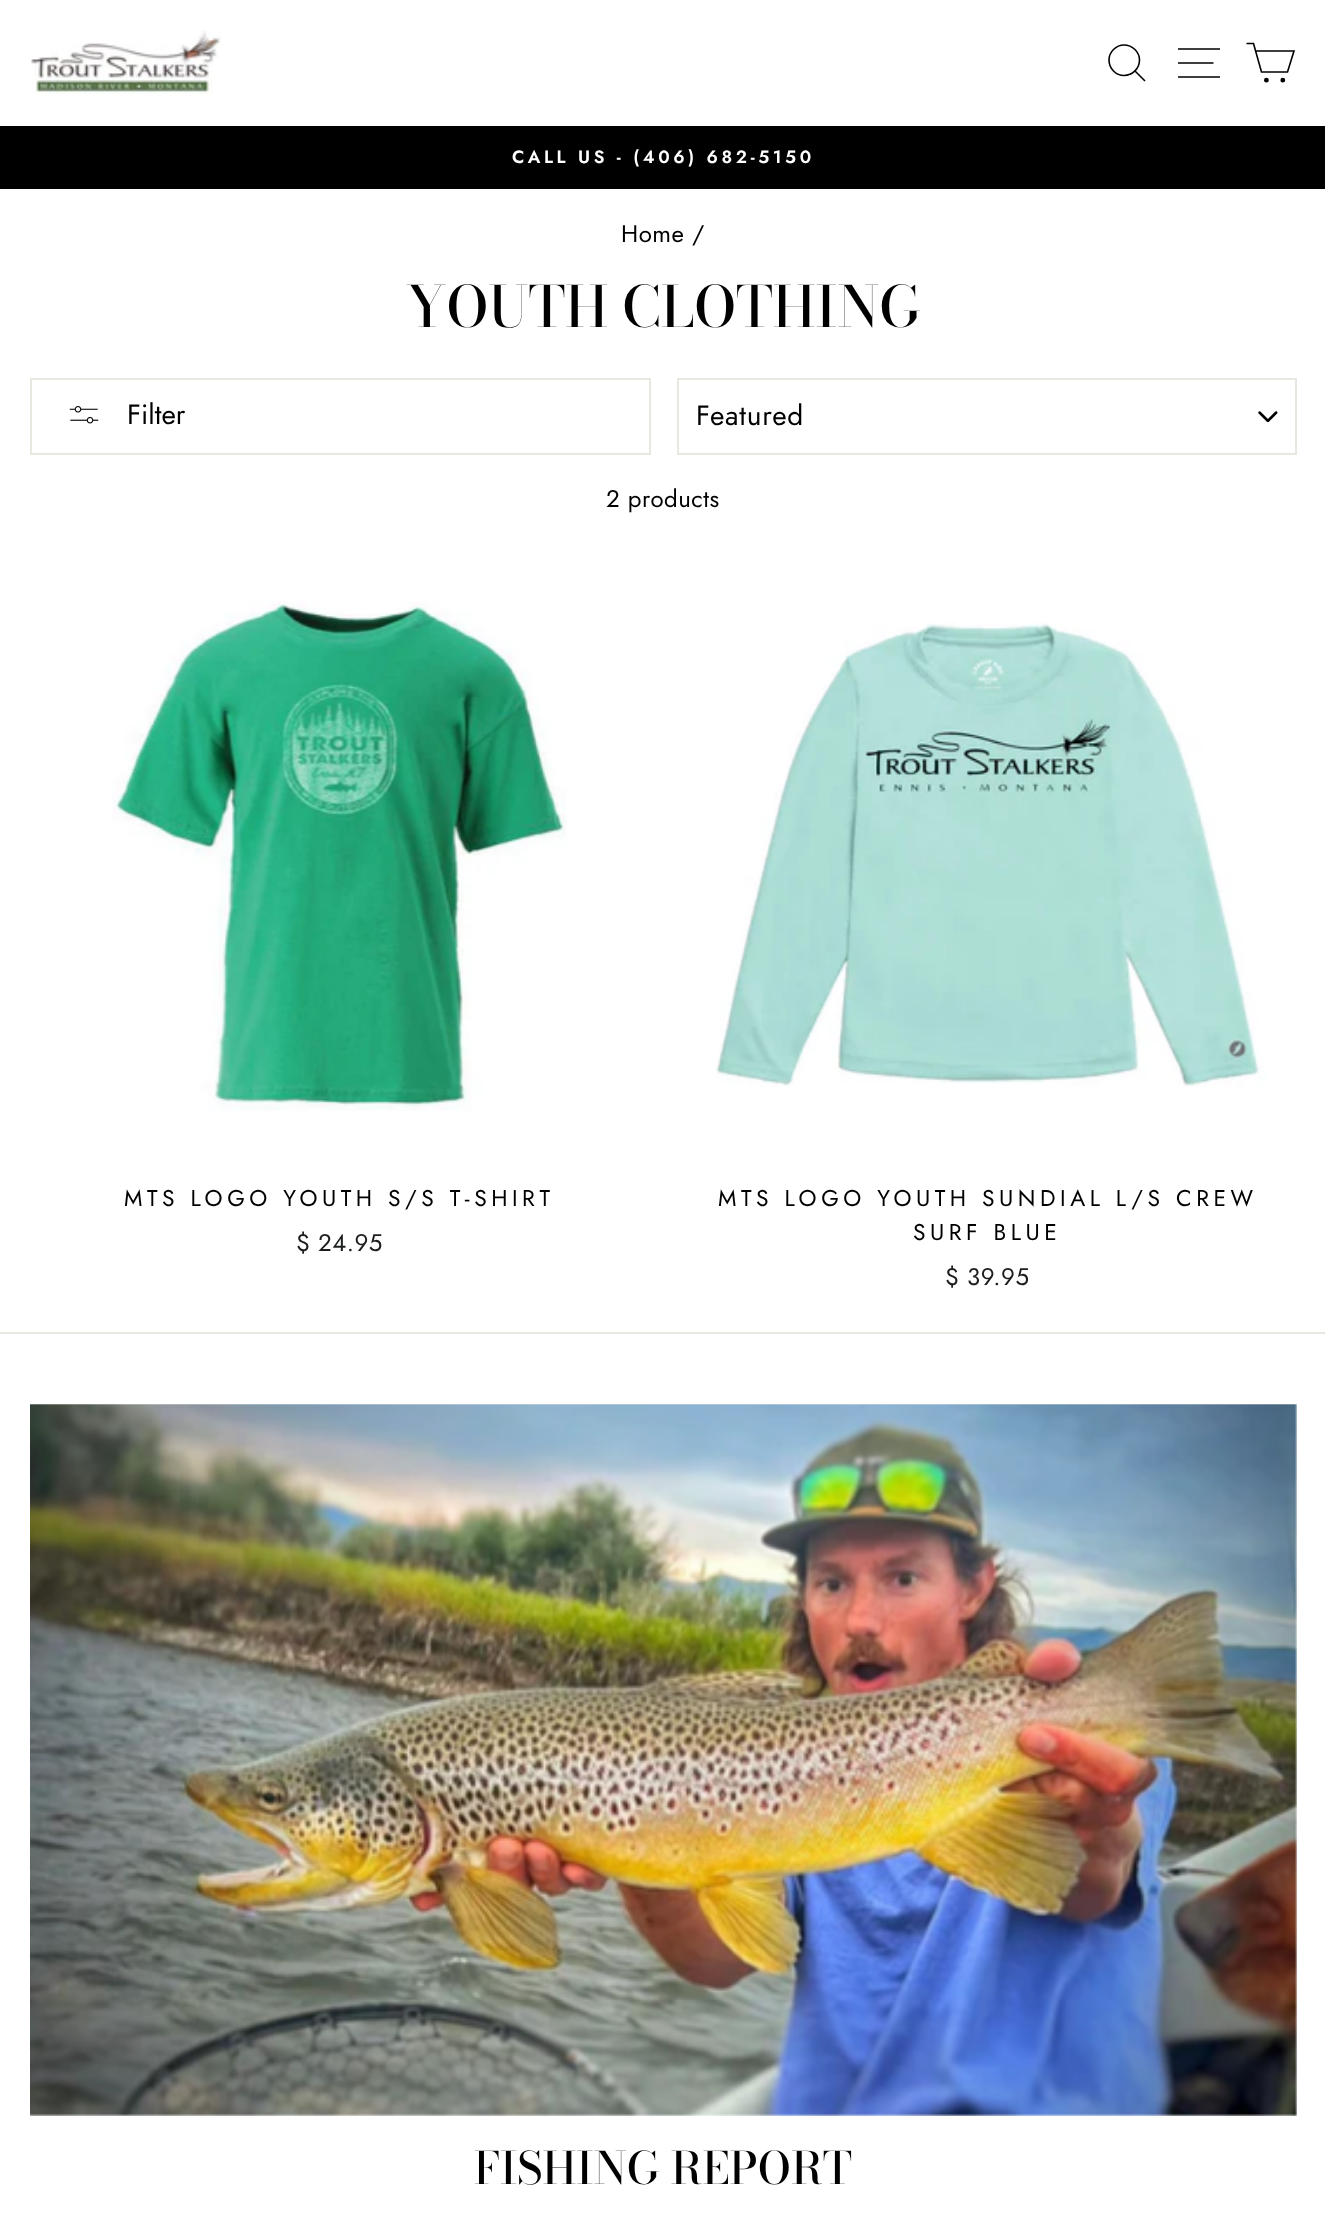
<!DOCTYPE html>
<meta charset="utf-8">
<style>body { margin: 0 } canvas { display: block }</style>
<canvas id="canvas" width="1325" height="2224"></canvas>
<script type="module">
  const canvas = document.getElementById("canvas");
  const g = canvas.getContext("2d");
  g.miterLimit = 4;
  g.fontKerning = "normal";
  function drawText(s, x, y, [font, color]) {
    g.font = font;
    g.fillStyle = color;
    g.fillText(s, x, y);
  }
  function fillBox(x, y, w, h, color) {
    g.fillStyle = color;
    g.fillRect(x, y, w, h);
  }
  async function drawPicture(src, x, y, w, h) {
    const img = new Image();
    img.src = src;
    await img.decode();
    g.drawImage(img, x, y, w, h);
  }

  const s1 = ["600 17.8px Jost", "#FFFFFF"];
  const s2 = ["24px Jost", "#000000"];
  const s3 = ["500 56.5px Bodoni Moda", "#000000"];
  const s4 = ["28px Jost", "#000000"];
  const s5 = ["22.75px Jost", "#000000"];
  const s6 = ["24px Jost", "#1C1D1D"];
  const s7 = ["500 44.5px 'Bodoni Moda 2'", "#000000"];

  fillBox(0, 0, 1325, 2224, "#FFFFFF");
  await drawPicture("pic1.png", 31, 30, 190, 64);
  g.beginPath();
  g.moveTo(1139.5, 60);
  g.bezierCurveTo(1139.5, 68.5, 1132.5, 75.5, 1124, 75.5);
  g.bezierCurveTo(1116, 75.5, 1109, 68.5, 1109, 60);
  g.bezierCurveTo(1109, 52, 1116, 45, 1124, 45);
  g.bezierCurveTo(1132.5, 45, 1139.5, 52, 1139.5, 60);
  g.closePath();
  g.moveTo(1145, 81);
  g.lineTo(1135, 71);
  g.strokeStyle = "#000000";
  g.lineWidth = 1.6;
  g.stroke();
  g.beginPath();
  g.moveTo(1178, 49);
  g.lineTo(1220, 49);
  g.moveTo(1178, 63);
  g.lineTo(1213.5, 63);
  g.moveTo(1178, 77);
  g.lineTo(1220, 77);
  g.stroke();
  g.beginPath();
  g.moveTo(1255.5, 51);
  g.lineTo(1294, 51);
  g.lineTo(1287.5, 72);
  g.lineTo(1261.5, 72);
  g.lineTo(1253.5, 43.5);
  g.lineTo(1246.5, 43.5);
  g.stroke();
  g.fillStyle = "#000000";
  g.beginPath();
  g.arc(1266.4, 80.2, 1.6, 0, Math.PI * 2);
  g.fill();
  g.stroke();
  g.beginPath();
  g.arc(1282.8, 80.2, 1.6, 0, Math.PI * 2);
  g.fill();
  g.stroke();
  fillBox(0, 126, 1325, 63, "#000000");
  g.letterSpacing = "3.6px";
  drawText("CALL US - (406) 682-5150", 512, 163, s1);
  g.letterSpacing = "0.5px";
  drawText("Home /", 621, 242, s2);
  g.letterSpacing = "0px";
  drawText("YOUTH CLOTHING", 406, 327, s3);
  g.strokeStyle = "#E8E8E1";
  g.lineWidth = 2;
  g.strokeRect(31, 379, 619, 75);
  await drawPicture("pic2.png", 69, 406, 30, 18);
  drawText("Filter", 127, 424, s4);
  await drawPicture("pic3.png", 1258, 411, 20, 11);
  g.strokeRect(678, 379, 618, 75);
  g.letterSpacing = "0.75px";
  drawText("Featured", 696, 425, s4);
  g.letterSpacing = "0.5px";
  drawText("2 products", 606, 507, s2);
  await drawPicture("pic4.png", 112, 601, 455, 510);
  g.letterSpacing = "4.55px";
  drawText("MTS LOGO YOUTH S/S T-SHIRT", 124, 1206, s5);
  g.letterSpacing = "0.5px";
  drawText("$ 24.95", 296, 1251, s6);
  await drawPicture("pic5.png", 716, 622, 551, 465);
  g.letterSpacing = "4.55px";
  drawText("MTS LOGO YOUTH SUNDIAL L/S CREW", 718, 1206, s5);
  drawText("SURF BLUE", 913, 1240, s5);
  g.letterSpacing = "0.5px";
  drawText("$ 39.95", 945, 1285, s6);
  fillBox(0, 1332, 1325, 2, "#E8E8E1");
  await drawPicture("pic6.png", 30, 1404, 1267, 712);
  g.letterSpacing = "0px";
  drawText("FISHING REPORT", 474, 2184, s7);
</script>
